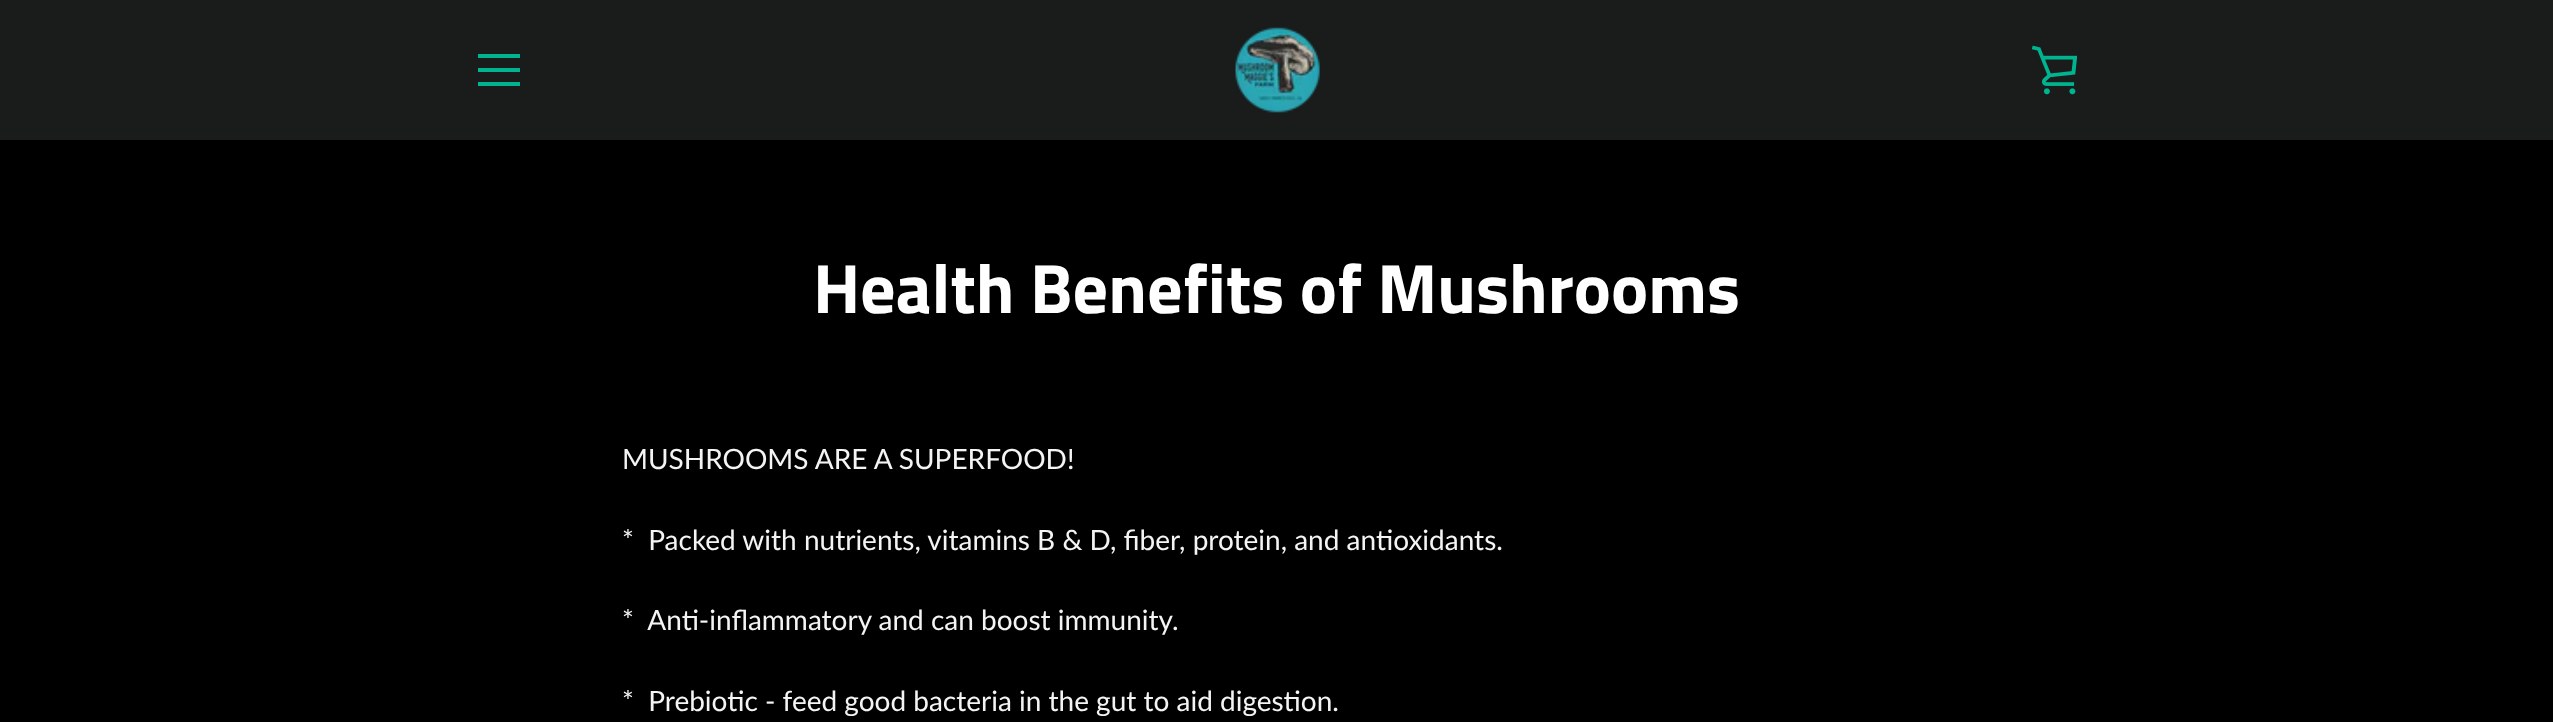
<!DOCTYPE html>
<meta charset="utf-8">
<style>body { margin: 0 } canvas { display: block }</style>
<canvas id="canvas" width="2553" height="722"></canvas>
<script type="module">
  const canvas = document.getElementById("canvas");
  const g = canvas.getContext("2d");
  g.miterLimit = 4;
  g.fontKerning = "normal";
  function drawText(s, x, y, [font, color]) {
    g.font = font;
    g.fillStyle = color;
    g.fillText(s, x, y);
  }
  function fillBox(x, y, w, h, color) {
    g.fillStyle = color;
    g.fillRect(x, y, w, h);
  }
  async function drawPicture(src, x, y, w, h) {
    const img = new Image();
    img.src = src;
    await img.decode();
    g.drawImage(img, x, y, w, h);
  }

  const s1 = ["bold 70px Titillium Web", "#FFFFFF"];
  const s2 = ["28px Lato", "#F3F4F3"];

  fillBox(0, 0, 2553, 722, "#000000");
  fillBox(0, 0, 2553, 140, "#191C1B");
  fillBox(478, 54, 42, 4, "#00B490");
  fillBox(478, 68, 42, 4, "#00B490");
  fillBox(478, 82, 42, 4, "#00B490");
  await drawPicture("pic1.png", 1235, 27, 85, 86);
  await drawPicture("pic2.png", 2032, 45, 45, 50);
  drawText("Health Benefits of Mushrooms", 813, 313, s1);
  drawText("MUSHROOMS ARE A SUPERFOOD!", 622, 469, s2);
  drawText("*  Packed with nutrients, vitamins B & D, fiber, protein, and antioxidants.", 622, 550, s2);
  drawText("*  Anti-inflammatory and can boost immunity.", 622, 630, s2);
  drawText("*  Prebiotic - feed good bacteria in the gut to aid digestion.", 622, 711, s2);
</script>
